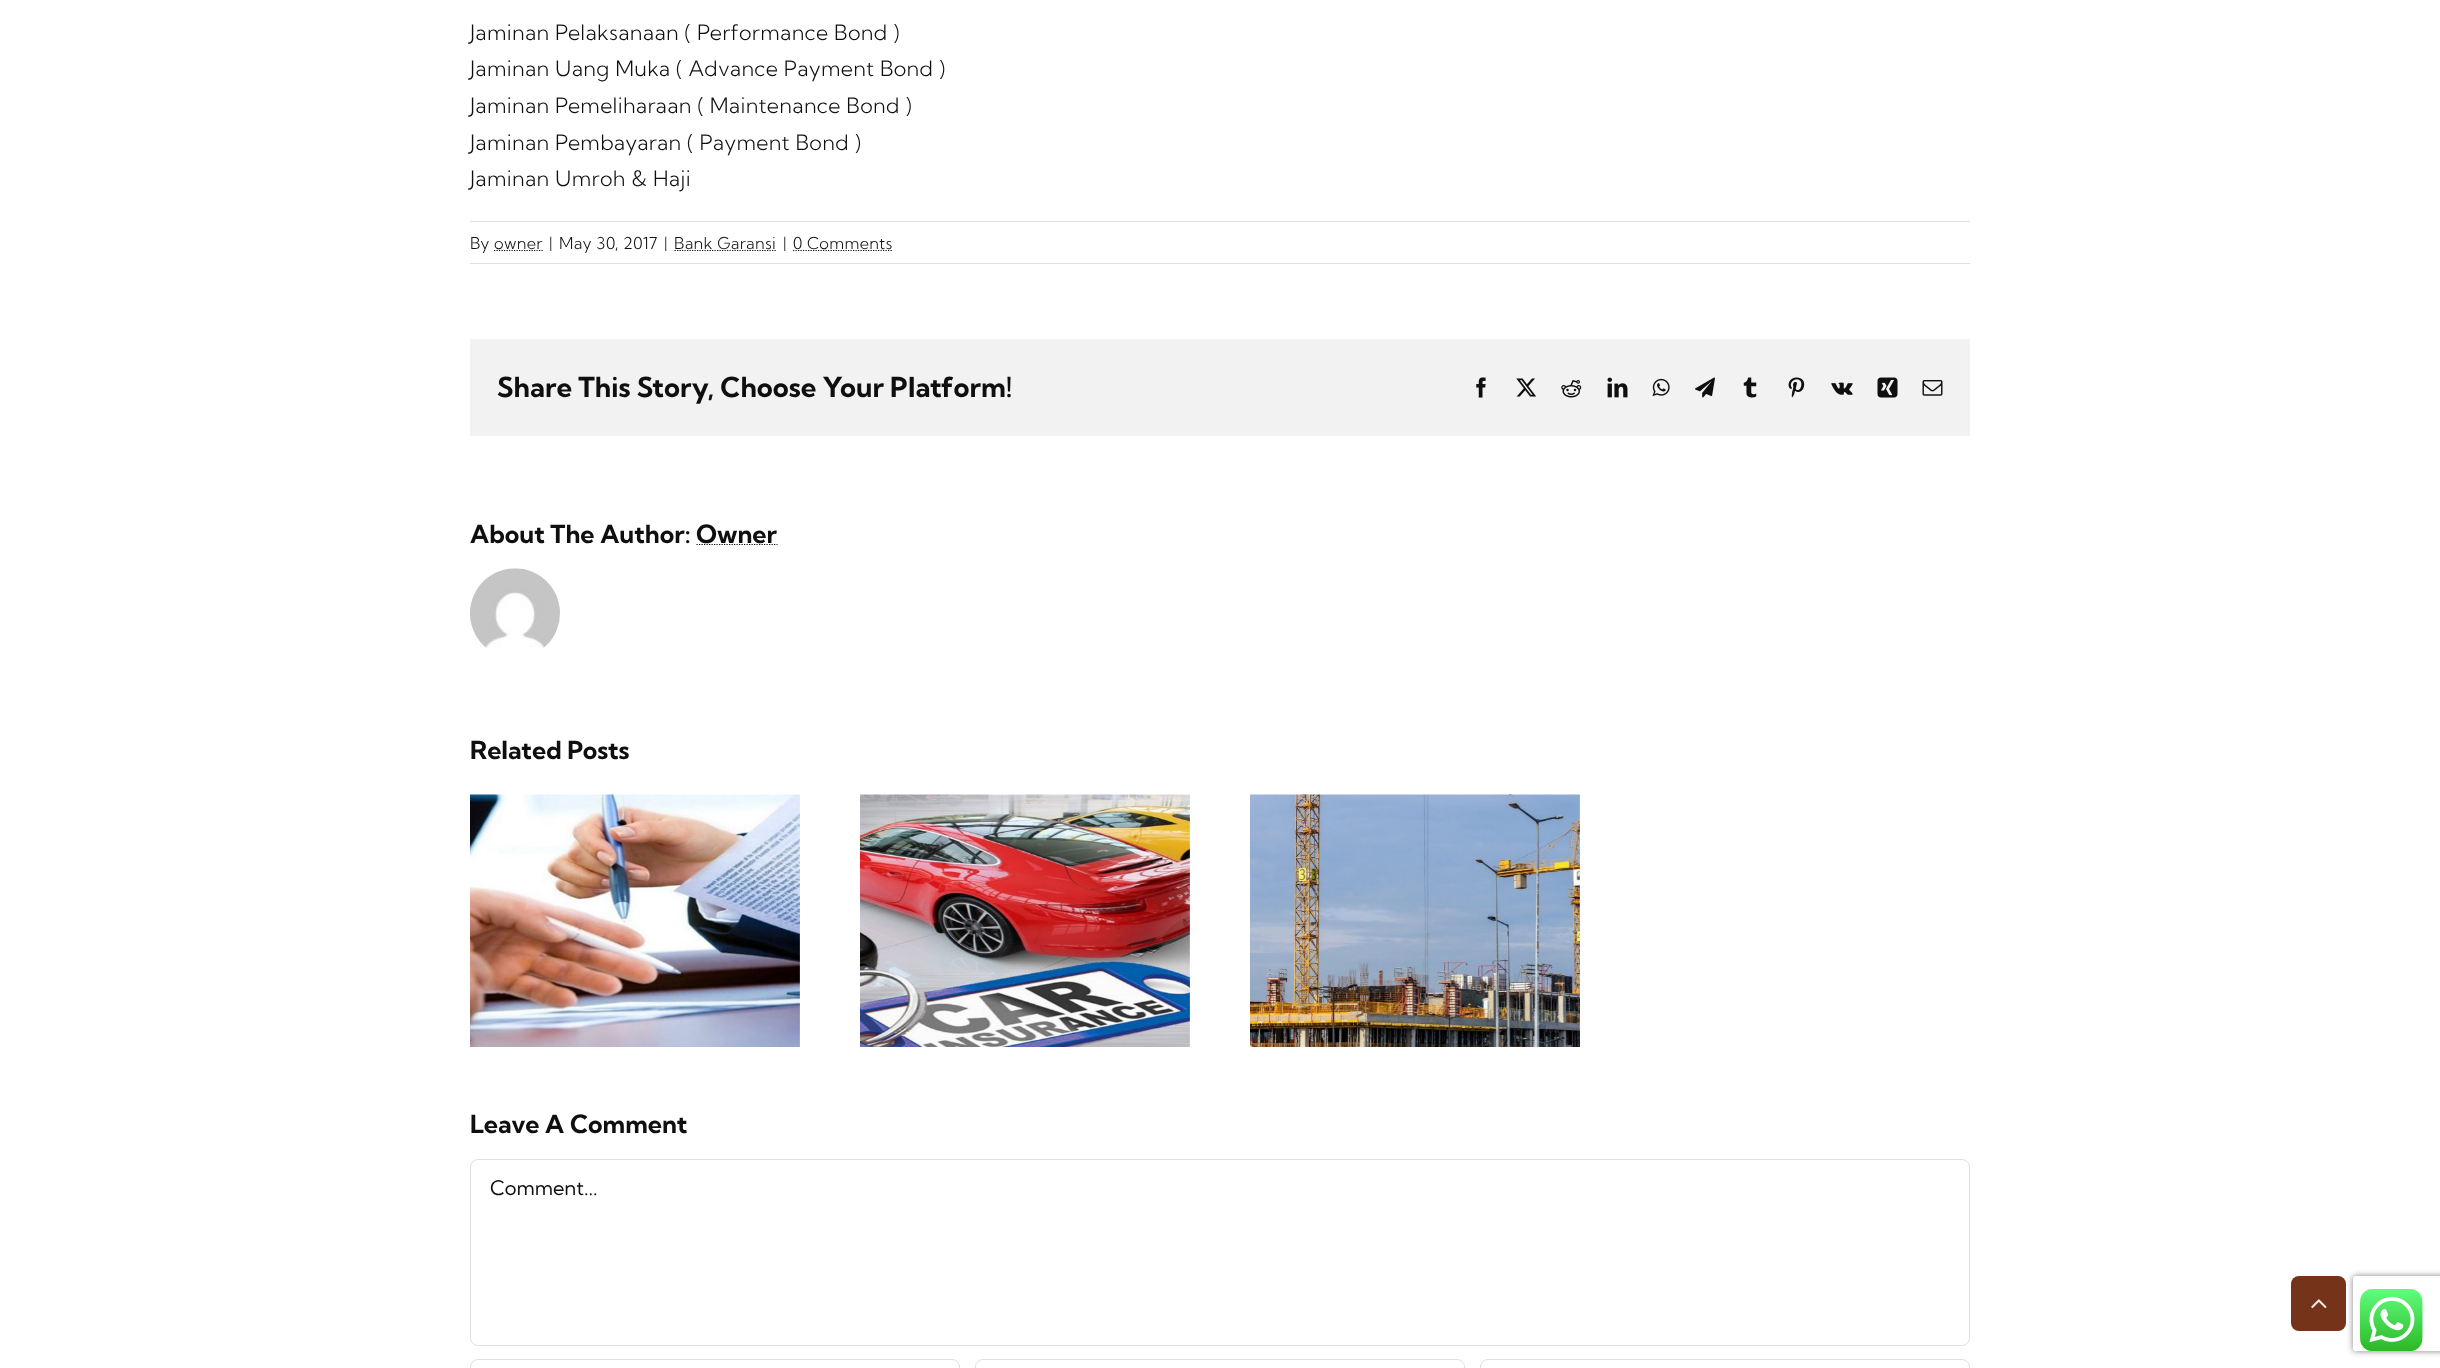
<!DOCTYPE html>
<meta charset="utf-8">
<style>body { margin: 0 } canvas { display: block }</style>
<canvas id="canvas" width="2440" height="1368"></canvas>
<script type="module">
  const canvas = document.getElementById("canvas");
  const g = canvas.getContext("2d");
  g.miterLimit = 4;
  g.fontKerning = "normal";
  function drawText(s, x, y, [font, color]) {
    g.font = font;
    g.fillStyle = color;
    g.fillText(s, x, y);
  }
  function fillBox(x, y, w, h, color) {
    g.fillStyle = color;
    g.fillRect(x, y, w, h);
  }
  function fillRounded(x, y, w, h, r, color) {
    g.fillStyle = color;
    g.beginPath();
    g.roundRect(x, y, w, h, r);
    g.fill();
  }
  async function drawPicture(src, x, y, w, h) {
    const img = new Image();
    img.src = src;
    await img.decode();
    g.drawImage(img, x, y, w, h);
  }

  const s1 = ["300 21.25px Kumbh Sans", "#0F0F0F"];
  const s2 = ["300 16.25px Kumbh Sans", "#0F0F0F"];
  const s3 = ["bold 27.5px Kumbh Sans", "#0F0F0F"];
  const s4 = ["bold 25px Kumbh Sans", "#0F0F0F"];
  const s5 = ["20px Kumbh Sans", "#0F0F0F"];

  fillBox(0, 0, 2440, 1368, "#FFFFFF");
  g.letterSpacing = "0.3px";
  drawText("Jaminan Pelaksanaan ( Performance Bond )", 470, 40, s1);
  drawText("Jaminan Uang Muka ( Advance Payment Bond )", 470, 76, s1);
  drawText("Jaminan Pemeliharaan ( Maintenance Bond )", 470, 113, s1);
  drawText("Jaminan Pembayaran ( Payment Bond )", 470, 150, s1);
  drawText("Jaminan Umroh & Haji", 470, 186, s1);
  fillBox(470, 221, 1500, 1, "#E0E0E0");
  fillBox(470, 263, 1500, 1, "#E0E0E0");
  drawText("By", 470, 249, s2);
  g.beginPath();
  g.moveTo(494, 250.5);
  g.lineTo(543, 250.5);
  g.strokeStyle = "#0F0F0F";
  g.lineWidth = 1.2;
  g.setLineDash([1.25, 1.25]);
  g.stroke();
  drawText("owner", 494, 249, s2);
  drawText("|", 549, 249, s2);
  drawText("May 30, 2017", 559, 249, s2);
  drawText("|", 664, 249, s2);
  g.beginPath();
  g.moveTo(674.5, 250.5);
  g.lineTo(776.5, 250.5);
  g.stroke();
  drawText("Bank Garansi", 674, 249, s2);
  drawText("|", 783, 249, s2);
  g.beginPath();
  g.moveTo(793, 250.5);
  g.lineTo(893, 250.5);
  g.stroke();
  drawText("0 Comments", 793, 249, s2);
  fillBox(470, 339, 1500, 97, "#F2F2F2");
  g.letterSpacing = "0px";
  drawText("Share This Story, Choose Your Platform!", 497, 397, s3);
  await drawPicture("pic1.png", 1476, 377, 10, 21);
  await drawPicture("pic2.png", 1516, 378, 21, 19);
  await drawPicture("pic3.png", 1561, 380, 21, 18);
  await drawPicture("pic4.png", 1607, 377, 21, 21);
  await drawPicture("pic5.png", 1652, 378, 18, 19);
  await drawPicture("pic6.png", 1695, 377, 20, 21);
  await drawPicture("pic7.png", 1743, 377, 14, 21);
  await drawPicture("pic8.png", 1788, 377, 17, 21);
  await drawPicture("pic9.png", 1831, 382, 22, 13);
  await drawPicture("pic10.png", 1877, 377, 21, 21);
  await drawPicture("pic11.png", 1922, 380, 21, 16);
  drawText("About The Author:", 470, 543, s4);
  g.beginPath();
  g.moveTo(696.5, 544.5);
  g.lineTo(777.5, 544.5);
  g.stroke();
  drawText("Owner", 696, 543, s4);
  await drawPicture("pic12.png", 470, 568, 90, 80);
  drawText("Related Posts", 470, 759, s4);
  await drawPicture("pic13.png", 470, 794, 330, 253);
  await drawPicture("pic14.png", 860, 794, 330, 253);
  await drawPicture("pic15.png", 1250, 794, 330, 253);
  drawText("Leave A Comment", 470, 1133, s4);
  g.beginPath();
  g.roundRect(470.5, 1159.5, 1499, 186, 7.5);
  g.strokeStyle = "#E0E0E0";
  g.lineWidth = 1;
  g.setLineDash([]);
  g.stroke();
  drawText("Comment...", 490, 1195, s5);
  g.beginPath();
  g.roundRect(470.5, 1359.5, 489, 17, 7.5);
  g.stroke();
  g.beginPath();
  g.roundRect(975.5, 1359.5, 489, 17, 7.5);
  g.stroke();
  g.beginPath();
  g.roundRect(1480.5, 1359.5, 489, 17, 7.5);
  g.stroke();
  g.save();
  g.beginPath();
  g.moveTo(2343, 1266);
  g.lineTo(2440, 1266);
  g.lineTo(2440, 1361);
  g.lineTo(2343, 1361);
  g.closePath();
  g.moveTo(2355.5, 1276);
  g.lineTo(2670.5, 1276);
  g.bezierCurveTo(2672, 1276, 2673, 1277, 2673, 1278.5);
  g.lineTo(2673, 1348.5);
  g.bezierCurveTo(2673, 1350, 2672, 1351, 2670.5, 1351);
  g.lineTo(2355.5, 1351);
  g.bezierCurveTo(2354, 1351, 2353, 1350, 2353, 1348.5);
  g.lineTo(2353, 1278.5);
  g.bezierCurveTo(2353, 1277, 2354, 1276, 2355.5, 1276);
  g.closePath();
  g.clip("evenodd");
  g.fillStyle = "#808080";
  g.filter = "blur(3px)";
  g.beginPath();
  g.roundRect(2353, 1276, 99, 75, 2.5);
  g.fill();
  g.filter = "none";
  g.restore();
  fillRounded(2291, 1276, 55, 55, 8, "#753419");
  await drawPicture("pic16.png", 2311, 1299, 16, 10);
  await drawPicture("pic17.png", 2360, 1289, 63, 62);
</script>
